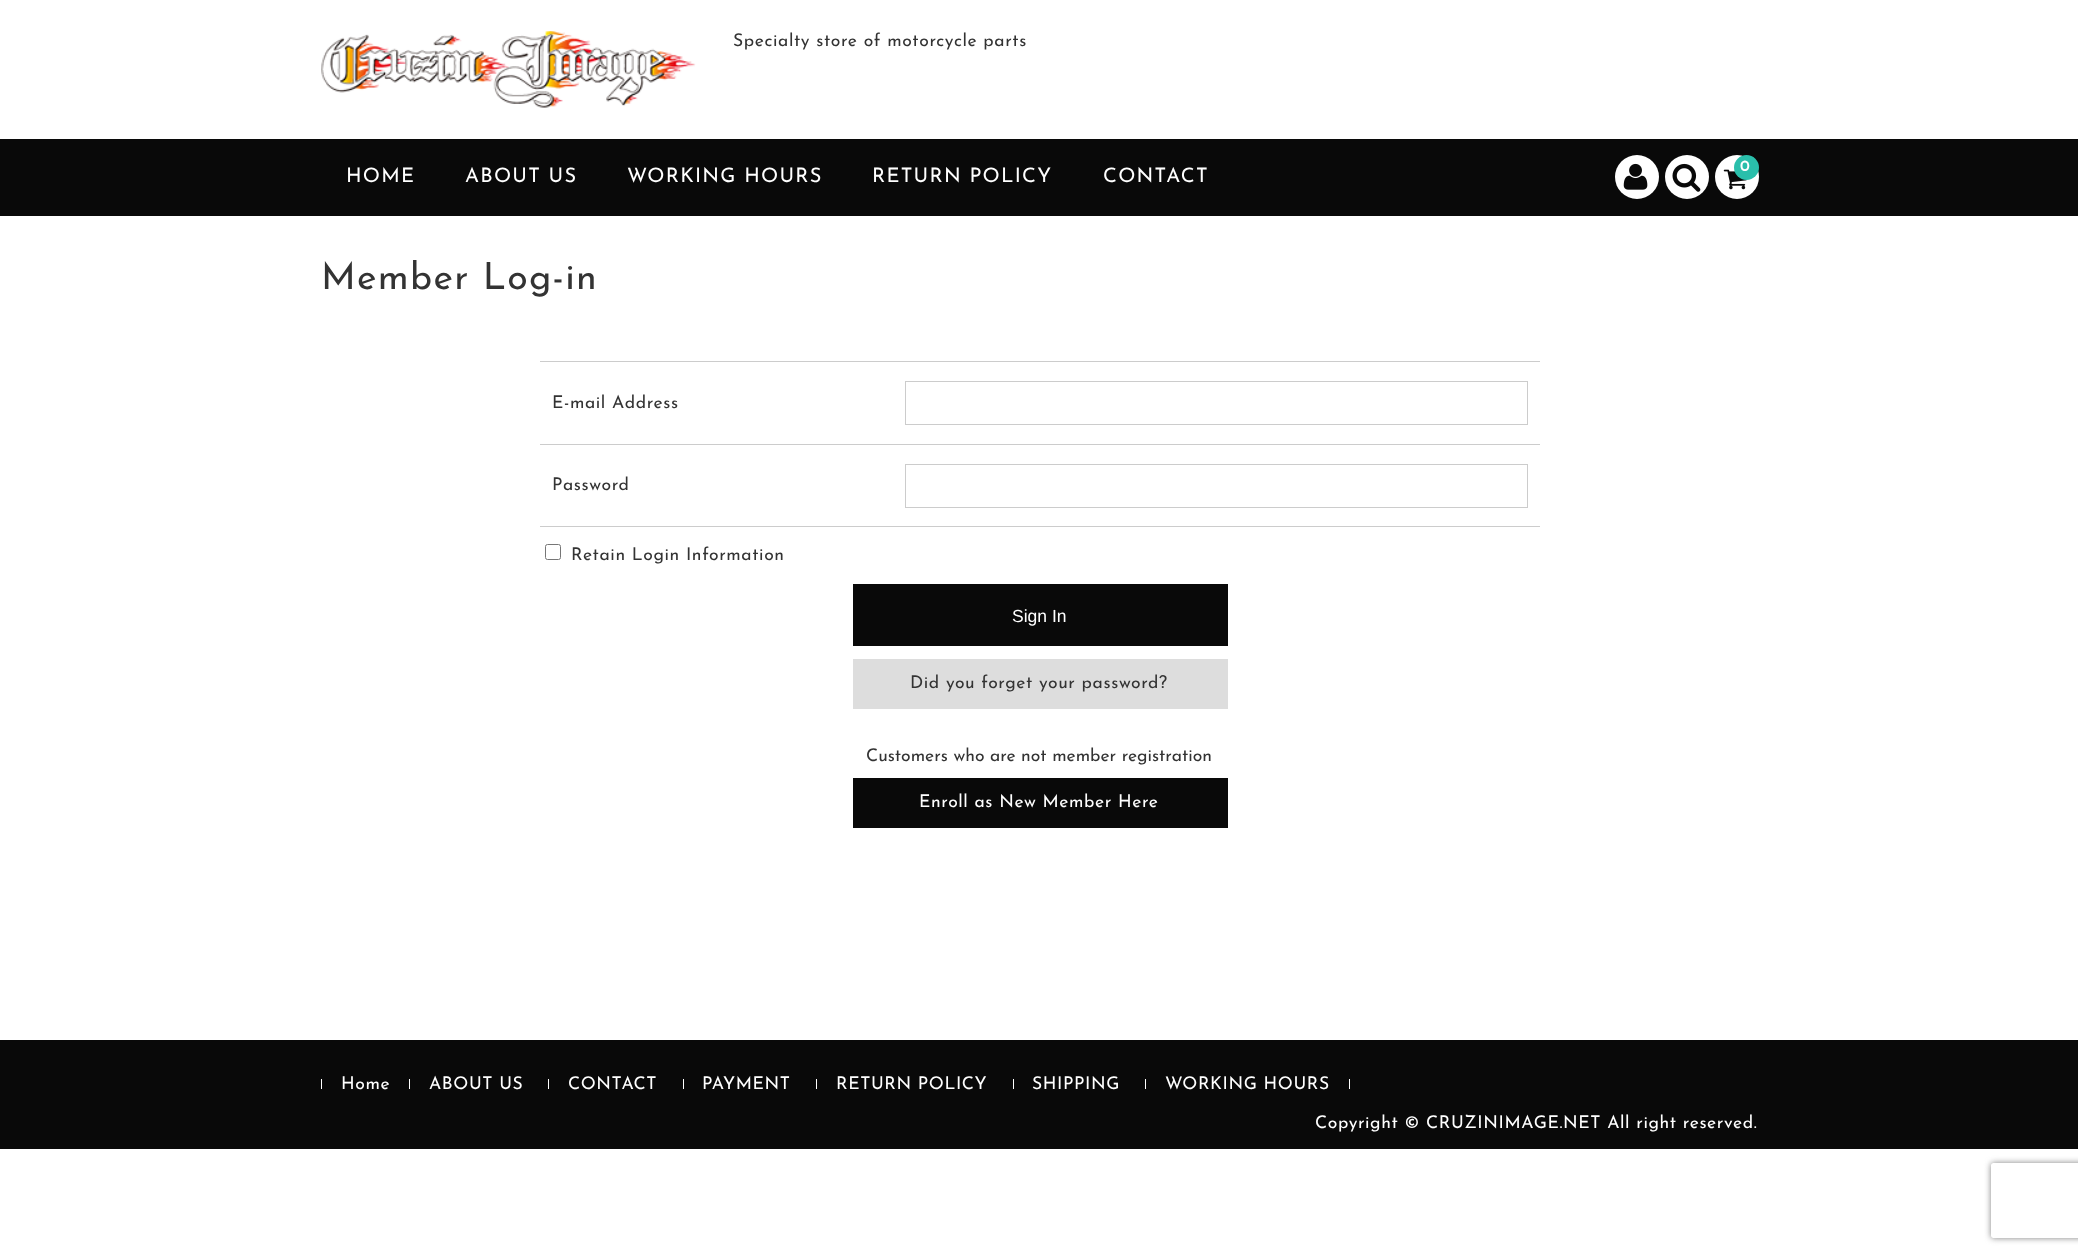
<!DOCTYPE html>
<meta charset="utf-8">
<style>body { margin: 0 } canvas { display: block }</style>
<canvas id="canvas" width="2078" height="1255"></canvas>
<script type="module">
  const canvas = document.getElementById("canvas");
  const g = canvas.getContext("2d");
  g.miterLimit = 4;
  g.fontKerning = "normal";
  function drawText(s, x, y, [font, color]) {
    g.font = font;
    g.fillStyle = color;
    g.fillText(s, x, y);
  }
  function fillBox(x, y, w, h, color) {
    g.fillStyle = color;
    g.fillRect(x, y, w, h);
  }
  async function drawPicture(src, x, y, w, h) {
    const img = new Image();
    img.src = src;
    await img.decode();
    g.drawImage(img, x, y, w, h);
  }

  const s1 = ["100 17.5px Josefin Sans", "#333333"];
  const s2 = ["100 20px Josefin Sans", "#FFFFFF"];
  const s3 = ["bold 15px Josefin Sans", "#FFFFFF"];
  const s4 = ["100 37.5px Josefin Sans", "#333333"];
  const s5 = ["17.5px Liberation Sans", "#FFFFFF"];
  const s6 = ["100 17.5px Josefin Sans", "#FFFFFF"];

  fillBox(0, 0, 2078, 1255, "#FFFFFF");
  await drawPicture("pic1.png", 321, 31, 375, 77);
  g.letterSpacing = "0.6px";
  drawText("Specialty store of motorcycle parts", 733, 46, s1);
  fillBox(0, 139, 2078, 77, "#090909");
  g.letterSpacing = "1.25px";
  drawText("HOME", 346, 182, s2);
  drawText("ABOUT US", 465, 182, s2);
  drawText("WORKING HOURS", 627, 182, s2);
  drawText("RETURN POLICY", 872, 182, s2);
  drawText("CONTACT", 1103, 182, s2);
  g.beginPath();
  g.arc(1637, 177, 22, 0, Math.PI * 2);
  g.fill();
  await drawPicture("pic2.png", 1623, 163, 25, 27);
  g.beginPath();
  g.arc(1687, 177, 22, 0, Math.PI * 2);
  g.fill();
  await drawPicture("pic3.png", 1672, 163, 29, 29);
  g.beginPath();
  g.arc(1737, 177, 22, 0, Math.PI * 2);
  g.fill();
  await drawPicture("pic4.png", 1723, 169, 24, 21);
  g.fillStyle = "#2ABFAB";
  g.beginPath();
  g.arc(1746.5, 167.5, 12.5, 0, Math.PI * 2);
  g.fill();
  drawText("0", 1740, 171, s3);
  drawText("Member Log-in", 321, 289, s4);
  fillBox(540, 361, 1000, 1, "#CCCCCC");
  fillBox(540, 444, 1000, 1, "#CCCCCC");
  g.letterSpacing = "0.6px";
  drawText("E-mail Address", 552, 408, s1);
  g.strokeStyle = "#CCCCCC";
  g.strokeRect(905.5, 381.5, 622, 43);
  fillBox(540, 526, 1000, 1, "#CCCCCC");
  drawText("Password", 552, 490, s1);
  g.strokeRect(905.5, 464.5, 622, 43);
  g.beginPath();
  g.roundRect(545.5, 544.5, 15, 15, 2);
  g.strokeStyle = "#767676";
  g.stroke();
  drawText("Retain Login Information", 571, 560, s1);
  fillBox(853, 584, 375, 62, "#090909");
  g.letterSpacing = "0px";
  drawText("Sign In", 1012, 622, s5);
  fillBox(853, 659, 375, 50, "#DDDDDD");
  g.letterSpacing = "0.6px";
  drawText("Did you forget your password?", 910, 688, s1);
  g.letterSpacing = "0px";
  drawText("Customers who are not member registration", 866, 761, s1);
  fillBox(853, 778, 375, 50, "#090909");
  g.letterSpacing = "0.6px";
  drawText("Enroll as New Member Here", 919, 807, s6);
  fillBox(0, 1040, 2078, 109, "#090909");
  fillBox(321, 1079, 1, 10, "#FFFFFF");
  drawText("Home", 341, 1089, s6);
  fillBox(409, 1079, 1, 10, "#FFFFFF");
  drawText("ABOUT US", 429, 1089, s6);
  fillBox(548, 1079, 1, 10, "#FFFFFF");
  drawText("CONTACT", 568, 1089, s6);
  fillBox(683, 1079, 1, 10, "#FFFFFF");
  drawText("PAYMENT", 702, 1089, s6);
  fillBox(816, 1079, 1, 10, "#FFFFFF");
  drawText("RETURN POLICY", 836, 1089, s6);
  fillBox(1013, 1079, 1, 10, "#FFFFFF");
  drawText("SHIPPING", 1032, 1089, s6);
  fillBox(1145, 1079, 1, 10, "#FFFFFF");
  drawText("WORKING HOURS", 1165, 1089, s6);
  fillBox(1349, 1079, 1, 10, "#FFFFFF");
  drawText("Copyright © CRUZINIMAGE.NET All right reserved.", 1315, 1128, s6);
  g.save();
  g.beginPath();
  g.moveTo(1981, 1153);
  g.lineTo(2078, 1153);
  g.lineTo(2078, 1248);
  g.lineTo(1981, 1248);
  g.closePath();
  g.moveTo(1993.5, 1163);
  g.lineTo(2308.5, 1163);
  g.bezierCurveTo(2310, 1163, 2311, 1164, 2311, 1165.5);
  g.lineTo(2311, 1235.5);
  g.bezierCurveTo(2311, 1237, 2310, 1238, 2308.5, 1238);
  g.lineTo(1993.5, 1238);
  g.bezierCurveTo(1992, 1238, 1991, 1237, 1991, 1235.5);
  g.lineTo(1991, 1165.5);
  g.bezierCurveTo(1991, 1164, 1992, 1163, 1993.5, 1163);
  g.closePath();
  g.clip("evenodd");
  g.fillStyle = "#808080";
  g.filter = "blur(3px)";
  g.beginPath();
  g.roundRect(1991, 1163, 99, 75, 2.5);
  g.fill();
  g.filter = "none";
  g.restore();
</script>
